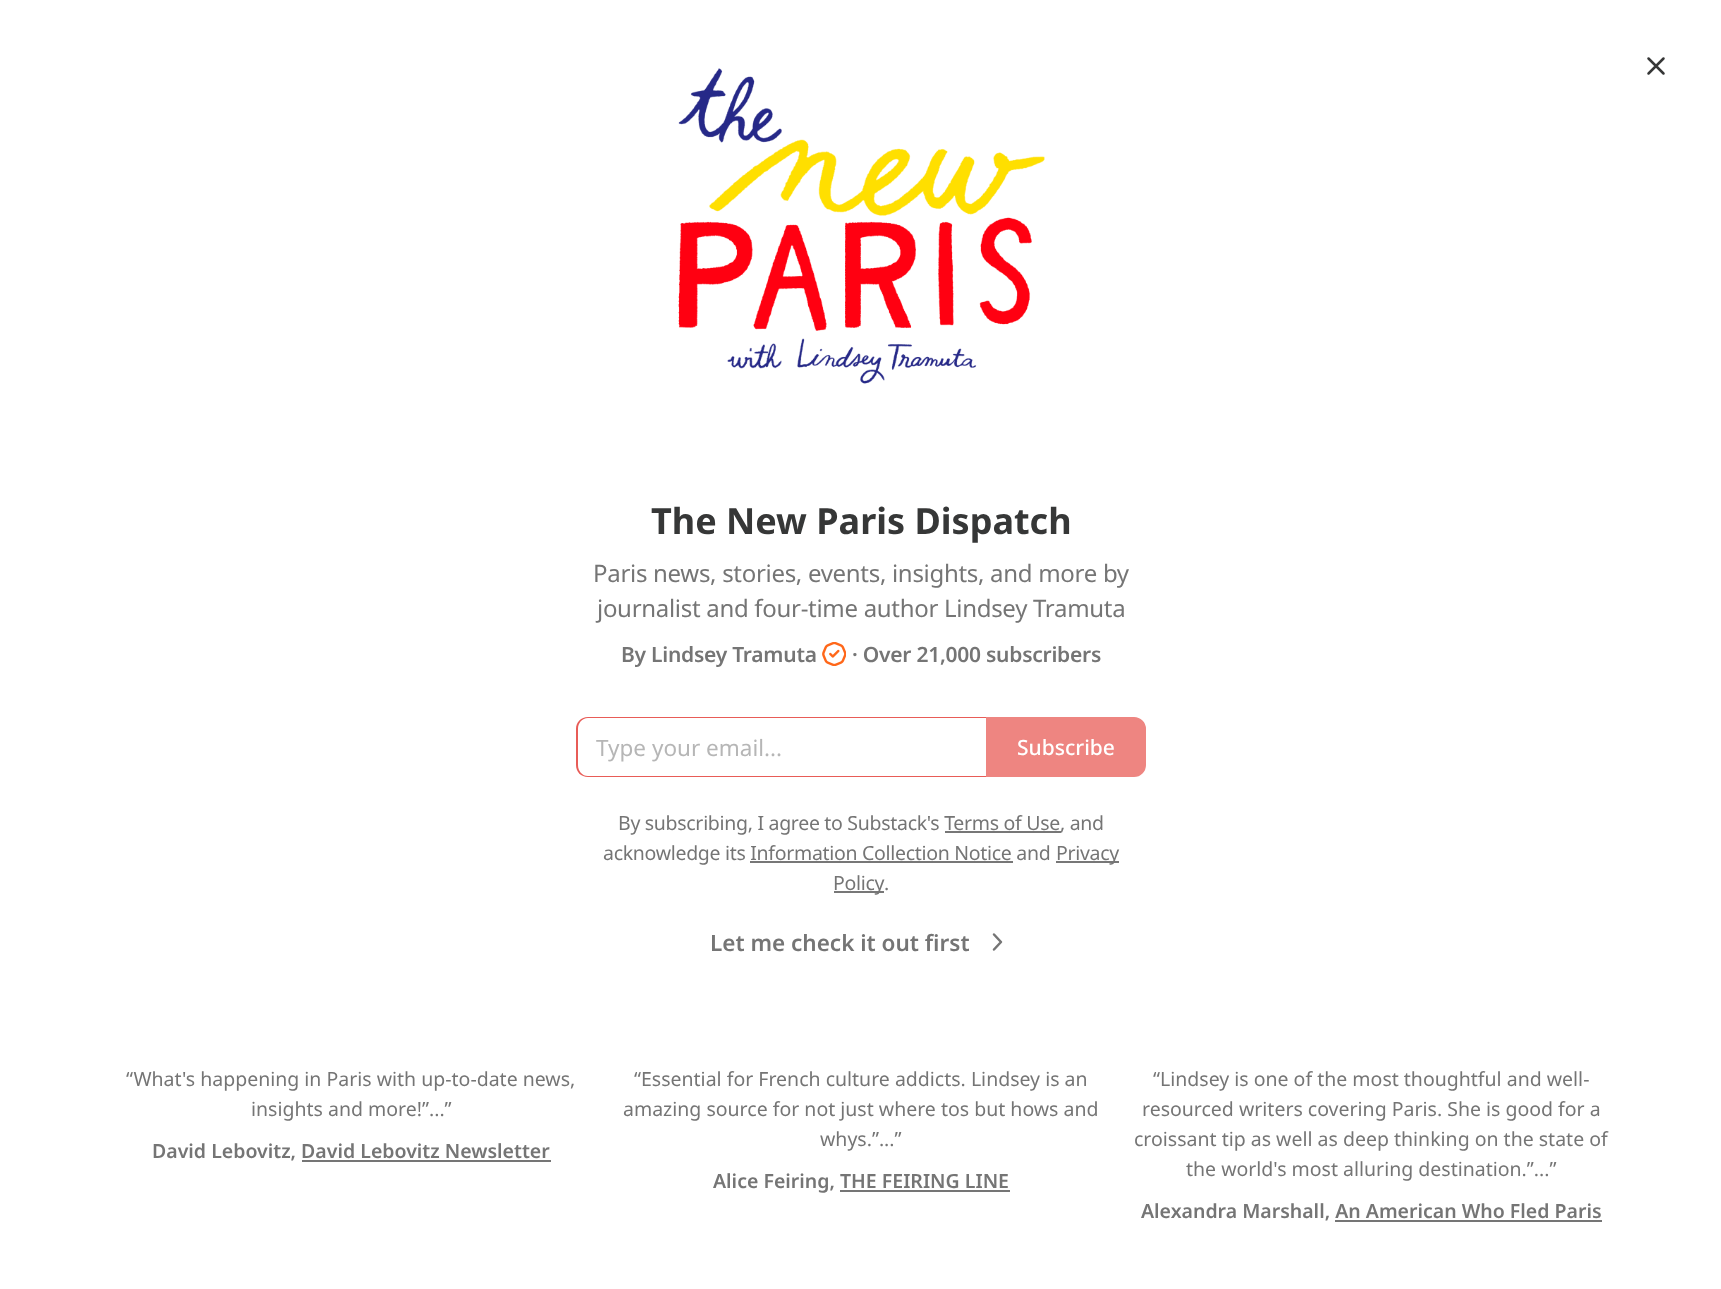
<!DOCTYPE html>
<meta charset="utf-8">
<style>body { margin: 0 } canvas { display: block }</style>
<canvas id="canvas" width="1721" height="1289"></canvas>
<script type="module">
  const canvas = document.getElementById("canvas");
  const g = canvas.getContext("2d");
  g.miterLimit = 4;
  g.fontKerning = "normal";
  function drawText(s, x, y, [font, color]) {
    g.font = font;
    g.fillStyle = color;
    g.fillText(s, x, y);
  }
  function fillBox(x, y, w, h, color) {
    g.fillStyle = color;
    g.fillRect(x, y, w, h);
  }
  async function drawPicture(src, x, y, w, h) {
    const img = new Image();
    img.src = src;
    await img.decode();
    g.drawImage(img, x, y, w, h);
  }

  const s1 = ["bold 36px Noto Sans", "#363737"];
  const s2 = ["24px Noto Sans", "#757575"];
  const s3 = ["600 21px Noto Sans", "#757575"];
  const s4 = ["22.5px Noto Sans", "#B6B6B6"];
  const s5 = ["500 21px Noto Sans", "#FFFFFF"];
  const s6 = ["19.5px Noto Sans", "#757575"];
  const s7 = ["600 22.5px Noto Sans", "#757575"];
  const s8 = ["600 19.5px Noto Sans", "#757575"];

  fillBox(0, 0, 1721, 1289, "#FFFFFF");
  g.beginPath();
  g.moveTo(1663.5, 58.5);
  g.lineTo(1648.5, 73.5);
  g.moveTo(1648.5, 58.5);
  g.lineTo(1663.5, 73.5);
  g.strokeStyle = "#363737";
  g.lineWidth = 2.5;
  g.lineCap = "round";
  g.lineJoin = "round";
  g.stroke();
  await drawPicture("pic1.png", 678, 68, 367, 316);
  drawText("The New Paris Dispatch", 651, 534, s1);
  g.letterSpacing = "-0.3px";
  drawText("Paris news, stories, events, insights, and more by", 593, 582, s2);
  drawText("journalist and four-time author Lindsey Tramuta", 597, 617, s2);
  g.letterSpacing = "-0.25px";
  drawText("By Lindsey Tramuta", 621, 662, s3);
  await drawPicture("pic2.png", 822, 642, 24, 24);
  drawText("· Over 21,000 subscribers", 852, 662, s3);
  g.fillStyle = "#E85C57";
  g.beginPath();
  g.moveTo(588, 717);
  g.lineTo(986, 717);
  g.lineTo(986, 777);
  g.lineTo(588, 777);
  g.bezierCurveTo(581, 777, 576, 772, 576, 765);
  g.lineTo(576, 729);
  g.bezierCurveTo(576, 722, 581, 717, 588, 717);
  g.closePath();
  g.moveTo(588, 718);
  g.lineTo(986, 718);
  g.lineTo(986, 776);
  g.lineTo(588, 776);
  g.bezierCurveTo(582, 776, 578, 771, 578, 765);
  g.lineTo(578, 729);
  g.bezierCurveTo(578, 723, 582, 718, 588, 718);
  g.closePath();
  g.fill("evenodd");
  g.letterSpacing = "0px";
  drawText("Type your email...", 596, 756, s4);
  g.fillStyle = "#EE8581";
  g.beginPath();
  g.roundRect(987, 718, 158, 58, [0, 11, 11, 0]);
  g.fill();
  g.strokeStyle = "#EE8581";
  g.lineWidth = 2;
  g.lineJoin = "miter";
  g.stroke();
  drawText("Subscribe", 1017, 755, s5);
  g.letterSpacing = "-0.3px";
  drawText("By subscribing, I agree to Substack's Terms of Use", 618, 830, s6);
  fillBox(945, 831, 116, 2, "#777777");
  drawText(", and", 1060, 830, s6);
  drawText("acknowledge its Information Collection Notice and", 603, 860, s6);
  fillBox(1056, 861, 63, 2, "#777777");
  drawText("Privacy", 1056, 860, s6);
  fillBox(750, 861, 263, 2, "#777777");
  fillBox(834, 891, 50, 2, "#777777");
  drawText("Policy", 833, 890, s6);
  drawText(".", 884, 890, s6);
  g.letterSpacing = "0px";
  drawText("Let me check it out first", 710, 951, s7);
  g.beginPath();
  g.moveTo(994, 949.5);
  g.lineTo(1001, 942);
  g.lineTo(994, 934.5);
  g.strokeStyle = "#757575";
  g.lineWidth = 2.5;
  g.lineJoin = "round";
  g.stroke();
  drawText("“What's happening in Paris with up-to-date news,", 126, 1086, s6);
  drawText("insights and more!”...”", 251, 1116, s6);
  drawText("David Lebovitz, David Lebovitz Newsletter", 152, 1158, s8);
  fillBox(302, 1160, 249, 2, "#757575");
  drawText("“Essential for French culture addicts. Lindsey is an", 634, 1086, s6);
  drawText("amazing source for not just where tos but hows and", 623, 1116, s6);
  drawText("whys.”...”", 820, 1146, s6);
  drawText("Alice Feiring, THE FEIRING LINE", 713, 1188, s8);
  fillBox(840, 1190, 170, 2, "#757575");
  drawText("“Lindsey is one of the most thoughtful and well-", 1153, 1086, s6);
  drawText("resourced writers covering Paris. She is good for a", 1142, 1116, s6);
  drawText("croissant tip as well as deep thinking on the state of", 1134, 1146, s6);
  drawText("the world's most alluring destination.”...”", 1186, 1176, s6);
  drawText("Alexandra Marshall, An American Who Fled Paris", 1141, 1218, s8);
  fillBox(1335, 1220, 267, 2, "#757575");
</script>
